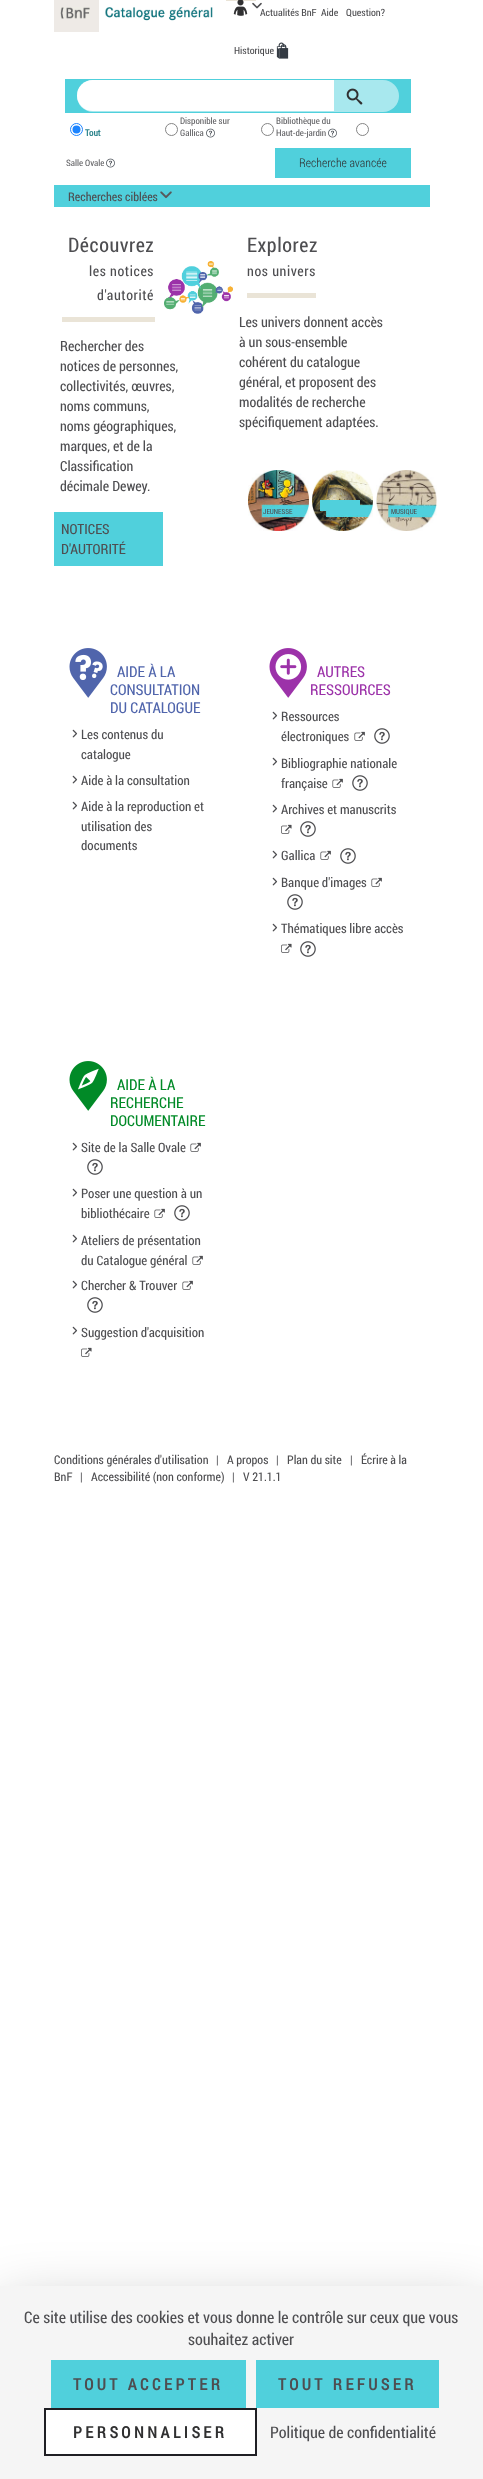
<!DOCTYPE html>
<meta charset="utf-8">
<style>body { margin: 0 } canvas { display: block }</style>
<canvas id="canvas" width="483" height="2479"></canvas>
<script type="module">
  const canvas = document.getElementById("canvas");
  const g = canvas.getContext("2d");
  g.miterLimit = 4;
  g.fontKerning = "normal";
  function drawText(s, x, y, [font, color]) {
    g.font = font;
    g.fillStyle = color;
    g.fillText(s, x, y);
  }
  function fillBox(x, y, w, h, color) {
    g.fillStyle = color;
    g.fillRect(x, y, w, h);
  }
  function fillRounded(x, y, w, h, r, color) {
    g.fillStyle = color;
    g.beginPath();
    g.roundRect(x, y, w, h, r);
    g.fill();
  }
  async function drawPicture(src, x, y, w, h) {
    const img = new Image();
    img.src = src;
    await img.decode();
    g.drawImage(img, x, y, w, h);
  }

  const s1 = ["10px Roboto Condensed", "#4E4E51"];
  const s2 = ["bold 9px Roboto Condensed", "#2B838B"];
  const s3 = ["9px Roboto Condensed", "#616164"];
  const s4 = ["300 12px Roboto Condensed", "#303031"];
  const s5 = ["12px Roboto Condensed", "#4E4E51"];
  const s6 = ["20px Roboto Condensed", "#4E4E51"];
  const s7 = ["14px Roboto Condensed", "#4E4E51"];
  const s8 = ["7px Roboto Condensed", "#4E4E51"];
  const s9 = ["15px Roboto Condensed", "#5065AC"];
  const s10 = ["13px Roboto Condensed", "#4E4E51"];
  const s11 = ["15px Roboto Condensed", "#9C32A9"];
  const s12 = ["15px Roboto Condensed", "#018A27"];
  const s13 = ["16px Roboto Condensed", "#4E4E51"];
  const s14 = ["bold 16px Roboto Condensed", "#4E4E51"];
  const s15 = ["bold 16px Roboto Condensed", "#303031"];

  fillBox(0, 0, 483, 2479, "#FFFFFF");
  fillBox(54, 0, 45, 32, "#EEEAE6");
  await drawPicture("pic1.png", 60, 7, 30, 12);
  await drawPicture("pic2.png", 105, 7, 108, 14);
  fillBox(226, 0, 30, 1, "#EAE4D7");
  await drawPicture("pic3.png", 233, 0, 15, 16);
  drawText("Actualités BnF", 260, 16, s1);
  await drawPicture("pic4.png", 252, 2, 10, 7);
  drawText("Aide", 321, 16, s1);
  drawText("Question?", 346, 16, s1);
  drawText("Historique", 234, 54, s1);
  await drawPicture("pic5.png", 276, 42, 13, 17);
  fillBox(65, 79, 346, 34, "#50D0DC");
  fillRounded(77, 80, 322, 32, 16, "#A8E8EE");
  g.fillStyle = "#FFFFFF";
  g.beginPath();
  g.roundRect(77, 80, 257, 31, [15.5, 0, 0, 15.5]);
  g.fill();
  await drawPicture("pic6.png", 346, 88, 17, 17);
  g.beginPath();
  g.arc(76.5, 129.5, 6, 0, Math.PI * 2);
  g.strokeStyle = "#1C84FF";
  g.stroke();
  g.fillStyle = "#1C84FF";
  g.beginPath();
  g.arc(76.5, 129.5, 4, 0, Math.PI * 2);
  g.fill();
  drawText("Tout", 85, 136, s2);
  g.beginPath();
  g.arc(171.5, 129.5, 6, 0, Math.PI * 2);
  g.strokeStyle = "#858585";
  g.stroke();
  drawText("Disponible sur", 180, 124, s3);
  drawText("Gallica", 180, 136, s3);
  await drawPicture("pic7.png", 206, 128, 9, 10);
  g.beginPath();
  g.arc(267.5, 129.5, 6, 0, Math.PI * 2);
  g.stroke();
  drawText("Bibliothèque du", 276, 124, s3);
  drawText("Haut-de-jardin", 276, 136, s3);
  await drawPicture("pic7.png", 328, 128, 9, 10);
  g.beginPath();
  g.arc(362.5, 129.5, 6, 0, Math.PI * 2);
  g.stroke();
  drawText("Salle Ovale", 66, 166, s3);
  await drawPicture("pic7.png", 106, 158, 9, 10);
  fillBox(275, 148, 136, 30, "#50D0DC");
  drawText("Recherche avancée", 299, 167, s4);
  fillBox(54, 185, 376, 22, "#50D0DC");
  drawText("Recherches ciblées", 68, 201, s5);
  await drawPicture("pic8.png", 160, 191, 12, 8);
  fillBox(62, 317, 93, 5, "#EAE4D7");
  g.letterSpacing = "0.6px";
  drawText("Découvrez", 68, 252, s6);
  drawText("les notices", 89, 276, s7);
  drawText("d'autorité", 97, 300, s7);
  g.letterSpacing = "0px";
  drawText("Rechercher des", 60, 351, s7);
  drawText("notices de personnes,", 60, 371, s7);
  drawText("collectivités, œuvres,", 60, 391, s7);
  drawText("noms communs,", 60, 411, s7);
  drawText("noms géographiques,", 60, 431, s7);
  drawText("marques, et de la", 60, 451, s7);
  drawText("Classification", 60, 471, s7);
  drawText("décimale Dewey.", 60, 491, s7);
  fillBox(54, 512, 109, 54, "#50D0DC");
  drawText("NOTICES", 61, 534, s7);
  drawText("D'AUTORITÉ", 61, 554, s7);
  await drawPicture("pic9.png", 164, 261, 69, 53);
  fillBox(247, 293, 69, 5, "#EAE4D7");
  g.letterSpacing = "0.6px";
  drawText("Explorez", 247, 252, s6);
  drawText("nos univers", 247, 276, s7);
  g.letterSpacing = "0px";
  drawText("Les univers donnent accès", 239, 327, s7);
  drawText("à un sous-ensemble", 239, 347, s7);
  drawText("cohérent du catalogue", 239, 367, s7);
  drawText("général, et proposent des", 239, 387, s7);
  drawText("modalités de recherche", 239, 407, s7);
  drawText("spécifiquement adaptées.", 239, 427, s7);
  await drawPicture("pic10.png", 248, 470, 61, 61);
  drawText("JEUNESSE", 263, 514, s8);
  await drawPicture("pic11.png", 312, 470, 61, 61);
  fillBox(320, 500, 40, 11, "#50D0DC");
  await drawPicture("pic12.png", 376, 470, 61, 61);
  drawText("MUSIQUE", 391, 514, s8);
  await drawPicture("pic13.png", 69, 648, 38, 50);
  drawText("AIDE À LA", 117, 677, s9);
  drawText("CONSULTATION", 110, 695, s9);
  drawText("DU CATALOGUE", 110, 713, s9);
  await drawPicture("pic14.png", 72, 729, 6, 9);
  drawText("Les contenus du", 81, 739, s10);
  drawText("catalogue", 81, 759, s10);
  await drawPicture("pic14.png", 72, 775, 6, 9);
  drawText("Aide à la consultation", 81, 785, s10);
  await drawPicture("pic14.png", 72, 801, 6, 9);
  drawText("Aide à la reproduction et", 81, 811, s10);
  drawText("utilisation des", 81, 831, s10);
  drawText("documents", 81, 850, s10);
  await drawPicture("pic15.png", 269, 648, 38, 50);
  drawText("AUTRES", 317, 677, s11);
  drawText("RESSOURCES", 310, 695, s11);
  await drawPicture("pic14.png", 272, 711, 6, 9);
  drawText("Ressources", 281, 721, s10);
  drawText("électroniques", 281, 741, s10);
  await drawPicture("pic16.png", 354, 731, 11, 10);
  await drawPicture("pic17.png", 374, 728, 16, 16);
  await drawPicture("pic14.png", 272, 757, 6, 9);
  drawText("Bibliographie nationale", 281, 768, s10);
  drawText("française", 281, 788, s10);
  await drawPicture("pic16.png", 332, 778, 11, 10);
  await drawPicture("pic17.png", 352, 775, 16, 16);
  await drawPicture("pic14.png", 272, 804, 6, 9);
  drawText("Archives et manuscrits", 281, 814, s10);
  await drawPicture("pic18.png", 281, 824, 11, 10);
  await drawPicture("pic17.png", 300, 821, 16, 16);
  await drawPicture("pic14.png", 272, 850, 6, 9);
  drawText("Gallica", 281, 860, s10);
  await drawPicture("pic16.png", 320, 850, 11, 10);
  await drawPicture("pic17.png", 340, 848, 16, 16);
  await drawPicture("pic14.png", 272, 877, 6, 9);
  drawText("Banque d'images", 281, 887, s10);
  await drawPicture("pic16.png", 371, 877, 11, 10);
  await drawPicture("pic17.png", 287, 894, 16, 16);
  await drawPicture("pic14.png", 272, 923, 6, 9);
  drawText("Thématiques libre accès", 281, 933, s10);
  await drawPicture("pic18.png", 281, 943, 11, 10);
  await drawPicture("pic17.png", 300, 941, 16, 16);
  await drawPicture("pic19.png", 69, 1061, 38, 50);
  drawText("AIDE À LA", 117, 1090, s12);
  drawText("RECHERCHE", 110, 1108, s12);
  drawText("DOCUMENTAIRE", 110, 1126, s12);
  await drawPicture("pic14.png", 72, 1142, 6, 9);
  drawText("Site de la Salle Ovale", 81, 1152, s10);
  await drawPicture("pic16.png", 190, 1142, 11, 10);
  await drawPicture("pic17.png", 87, 1159, 16, 16);
  await drawPicture("pic14.png", 72, 1188, 6, 9);
  drawText("Poser une question à un", 81, 1198, s10);
  drawText("bibliothécaire", 81, 1218, s10);
  await drawPicture("pic16.png", 154, 1208, 11, 10);
  await drawPicture("pic17.png", 174, 1205, 16, 16);
  await drawPicture("pic14.png", 72, 1234, 6, 9);
  drawText("Ateliers de présentation", 81, 1245, s10);
  drawText("du Catalogue général", 81, 1265, s10);
  await drawPicture("pic16.png", 192, 1255, 11, 10);
  await drawPicture("pic14.png", 72, 1280, 6, 9);
  drawText("Chercher & Trouver", 81, 1290, s10);
  await drawPicture("pic16.png", 182, 1280, 11, 10);
  await drawPicture("pic17.png", 87, 1297, 16, 16);
  await drawPicture("pic14.png", 72, 1326, 6, 9);
  drawText("Suggestion d'acquisition", 81, 1337, s10);
  await drawPicture("pic18.png", 81, 1347, 11, 10);
  drawText("Conditions générales d'utilisation", 54, 1464, s5);
  drawText("|", 216, 1464, s5);
  drawText("A propos", 227, 1464, s5);
  drawText("|", 276, 1464, s5);
  drawText("Plan du site", 287, 1464, s5);
  drawText("|", 350, 1464, s5);
  drawText("Écrire à la", 361, 1464, s5);
  drawText("BnF", 54, 1481, s5);
  drawText("|", 80, 1481, s5);
  drawText("Accessibilité (non conforme)", 91, 1481, s5);
  drawText("|", 232, 1481, s5);
  drawText("V 21.1.1", 243, 1481, s5);
  g.fillStyle = "rgba(0, 0, 0, 0.25)";
  g.filter = "blur(30px)";
  g.beginPath();
  g.rect(0, 2306, 483, 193);
  g.fill();
  g.filter = "none";
  fillBox(0, 2286, 483, 193, "#F5F5F5");
  drawText("Ce site utilise des cookies et vous donne le contrôle sur ceux que vous", 24, 2323, s13);
  drawText("souhaitez activer", 188, 2345, s13);
  fillBox(51, 2360, 195, 48, "#50D0DC");
  g.letterSpacing = "3.5px";
  drawText("TOUT ACCEPTER", 73, 2390, s14);
  fillBox(256, 2360, 183, 48, "#50D0DC");
  drawText("TOUT REFUSER", 278, 2390, s14);
  g.fillStyle = "#FFFFFF";
  g.beginPath();
  g.rect(45, 2409, 211, 46);
  g.fill();
  g.strokeStyle = "#1F1F24";
  g.lineWidth = 2;
  g.stroke();
  drawText("PERSONNALISER", 73, 2438, s15);
  g.letterSpacing = "0px";
  drawText("Politique de confidentialité", 270, 2438, s13);
</script>
